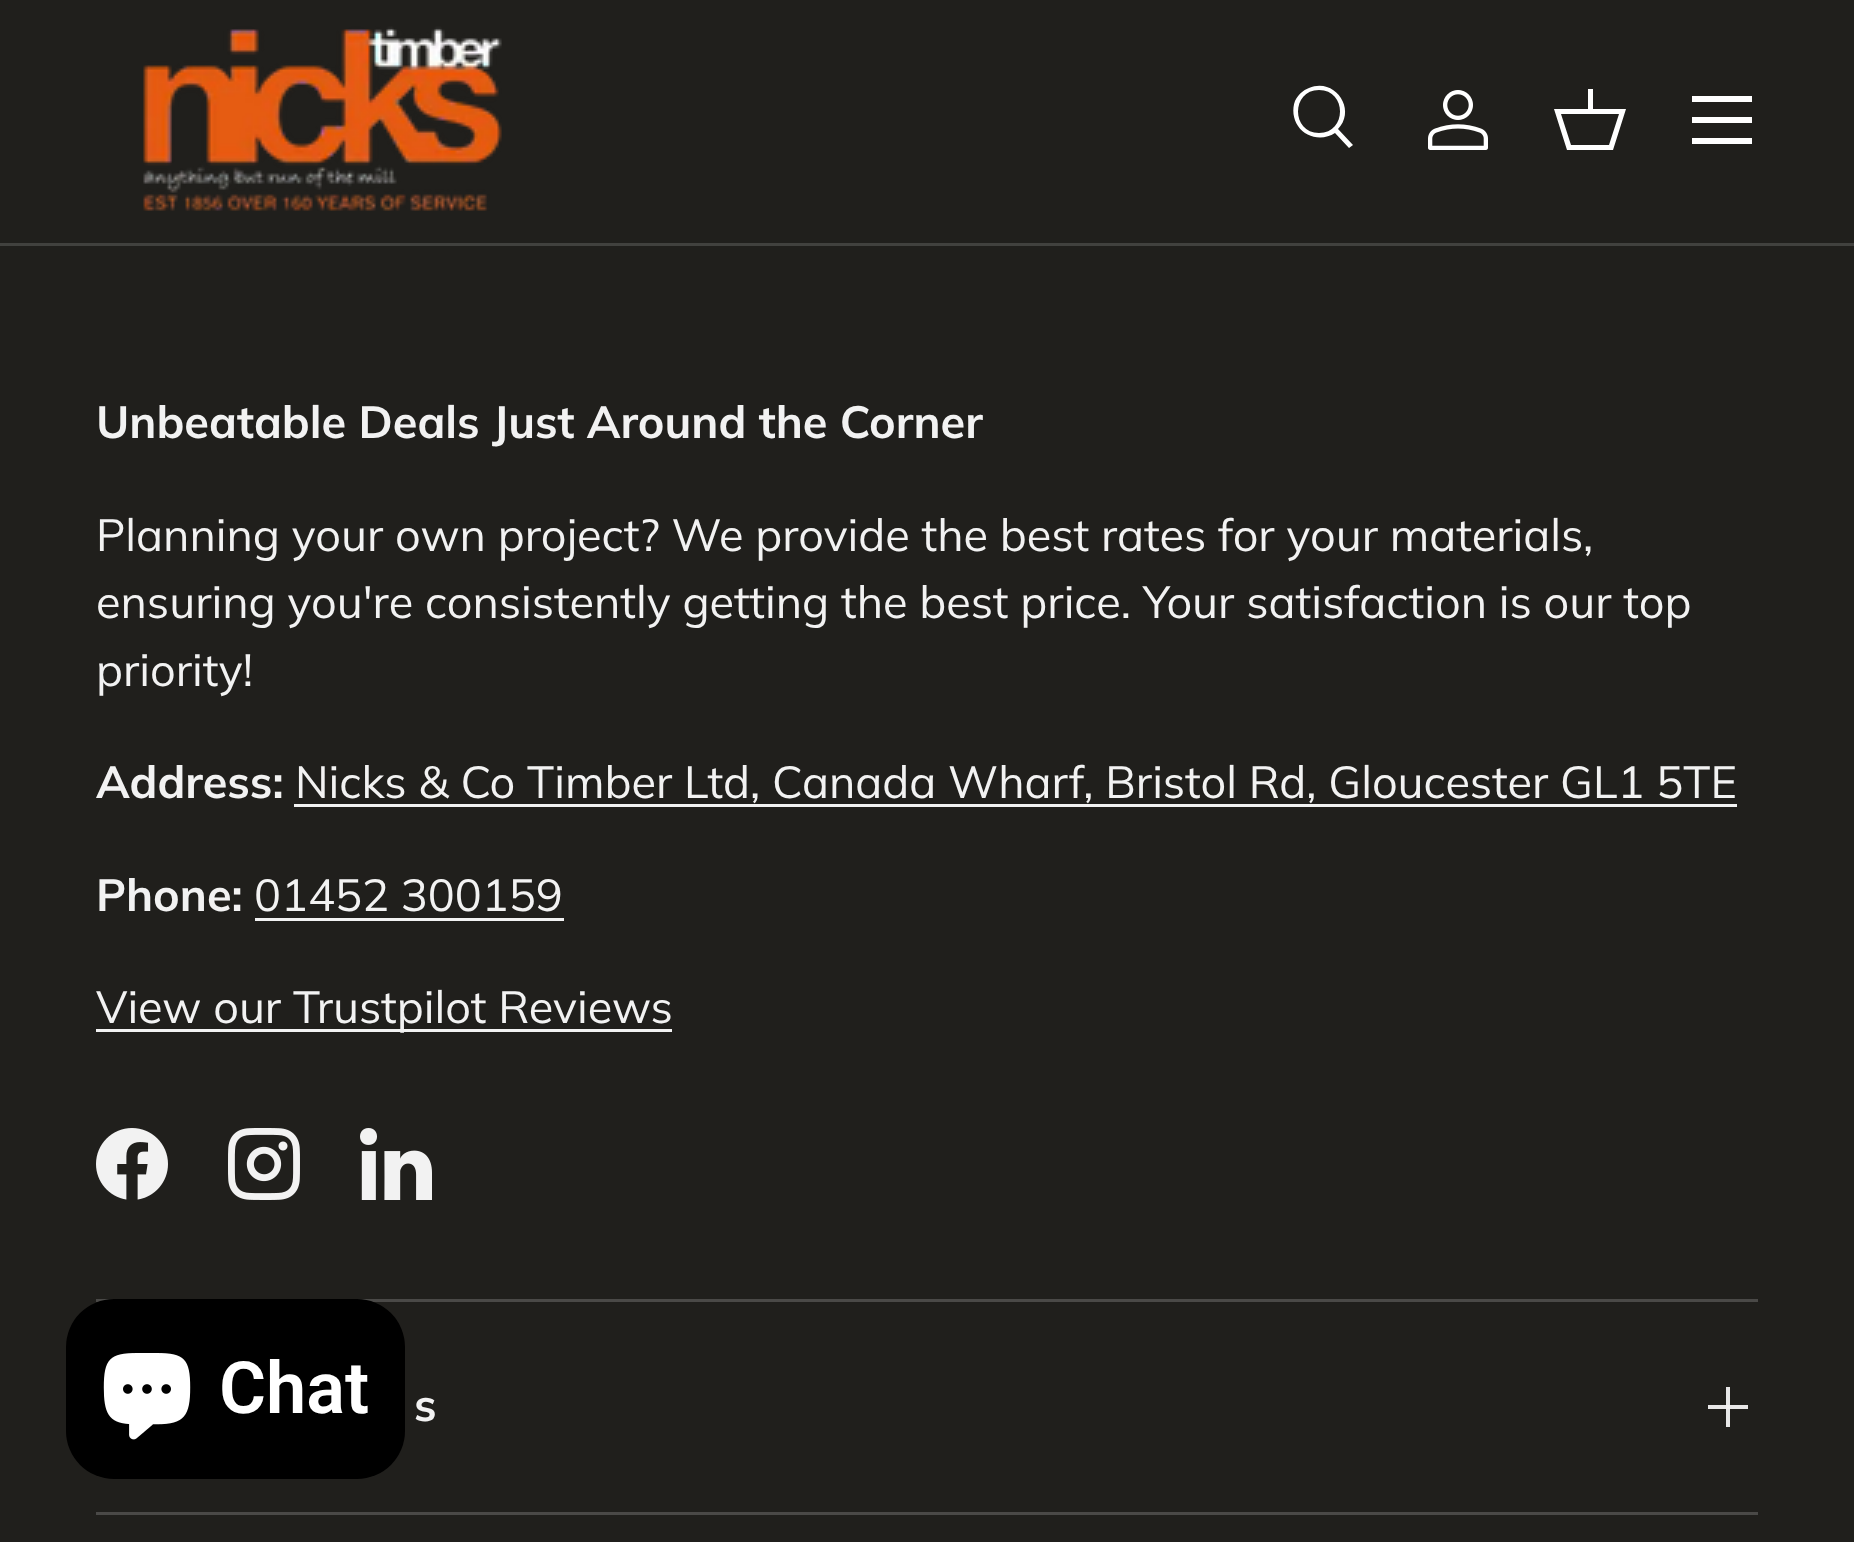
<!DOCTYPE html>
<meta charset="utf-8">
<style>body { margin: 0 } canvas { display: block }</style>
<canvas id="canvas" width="1854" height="1542"></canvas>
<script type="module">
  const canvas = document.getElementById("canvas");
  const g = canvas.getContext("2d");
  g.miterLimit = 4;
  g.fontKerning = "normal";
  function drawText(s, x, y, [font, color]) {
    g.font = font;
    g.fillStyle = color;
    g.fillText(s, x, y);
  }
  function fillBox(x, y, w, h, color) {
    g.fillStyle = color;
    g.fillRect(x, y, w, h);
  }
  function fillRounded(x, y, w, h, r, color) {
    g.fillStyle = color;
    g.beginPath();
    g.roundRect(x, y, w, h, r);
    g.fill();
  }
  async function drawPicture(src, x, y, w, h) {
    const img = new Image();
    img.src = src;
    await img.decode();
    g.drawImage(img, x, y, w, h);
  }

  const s1 = ["bold 45px Muli", "#F2F2F2"];
  const s2 = ["45px Muli", "#F2F2F2"];
  const s3 = ["600 72px Roboto", "#FFFFFF"];

  fillBox(0, 0, 1854, 1542, "#201F1C");
  fillBox(0, 243, 1854, 3, "#41413E");
  await drawPicture("pic1.png", 143, 26, 359, 185);
  g.fillStyle = "#FFFFFF";
  g.beginPath();
  g.moveTo(1338, 129);
  g.lineTo(1353, 145);
  g.lineTo(1349, 148);
  g.lineTo(1335, 133);
  g.bezierCurveTo(1323, 141, 1306, 138, 1298, 126);
  g.bezierCurveTo(1293, 119, 1292, 109, 1295, 101);
  g.bezierCurveTo(1298, 95, 1303, 90, 1309, 88);
  g.bezierCurveTo(1335, 77, 1357, 110, 1338, 129);
  g.closePath();
  g.moveTo(1319, 133);
  g.bezierCurveTo(1347, 133, 1347, 90, 1319, 90);
  g.bezierCurveTo(1291, 90, 1291, 133, 1319, 133);
  g.closePath();
  g.fill();
  await drawPicture("pic2.png", 1428, 90, 60, 60);
  g.beginPath();
  g.moveTo(1588, 109);
  g.lineTo(1588, 89);
  g.lineTo(1593, 89);
  g.lineTo(1593, 109);
  g.lineTo(1626, 109);
  g.lineTo(1613, 150);
  g.lineTo(1567, 150);
  g.lineTo(1554, 109);
  g.closePath();
  g.moveTo(1561, 114);
  g.lineTo(1571, 145);
  g.lineTo(1609, 145);
  g.lineTo(1619, 114);
  g.closePath();
  g.fill();
  fillBox(1692, 96, 60, 6, "#FFFFFF");
  fillBox(1692, 138, 60, 6, "#FFFFFF");
  fillBox(1692, 117, 60, 6, "#FFFFFF");
  fillBox(1726, 1387, 4, 40, "#E7E7E7");
  drawText("Unbeatable Deals Just Around the Corner", 96, 438, s1);
  drawText("Planning your own project? We provide the best rates for your materials,", 96, 551, s2);
  drawText("ensuring you're consistently getting the best price. Your satisfaction is our top", 96, 618, s2);
  drawText("priority!", 96, 686, s2);
  drawText("Address:", 96, 798, s1);
  drawText("Nicks & Co Timber Ltd, Canada Wharf, Bristol Rd, Gloucester GL1 5TE", 295, 798, s2);
  fillBox(294, 804, 1443, 3, "#F2F2F2");
  drawText("Phone:", 96, 911, s1);
  drawText("01452 300159", 254, 911, s2);
  fillBox(255, 918, 309, 3, "#F2F2F2");
  fillBox(96, 1029, 576, 3, "#F2F2F2");
  drawText("View our Trustpilot Reviews", 96, 1023, s2);
  await drawPicture("pic3.png", 96, 1128, 72, 72);
  await drawPicture("pic4.png", 228, 1128, 72, 72);
  await drawPicture("pic5.png", 360, 1128, 72, 72);
  fillBox(96, 1299, 1662, 3, "#4A4947");
  fillBox(96, 1512, 1662, 3, "#4A4947");
  drawText("s", 414, 1421, s1);
  fillBox(1708, 1405, 40, 4, "#E8E7E7");
  fillBox(1726, 1405, 4, 4, "#F2F1F1");
  fillRounded(66, 1299, 339, 180, 48, "#000000");
  await drawPicture("pic6.png", 103, 1353, 88, 87);
  drawText("Chat", 219, 1413, s3);
</script>
